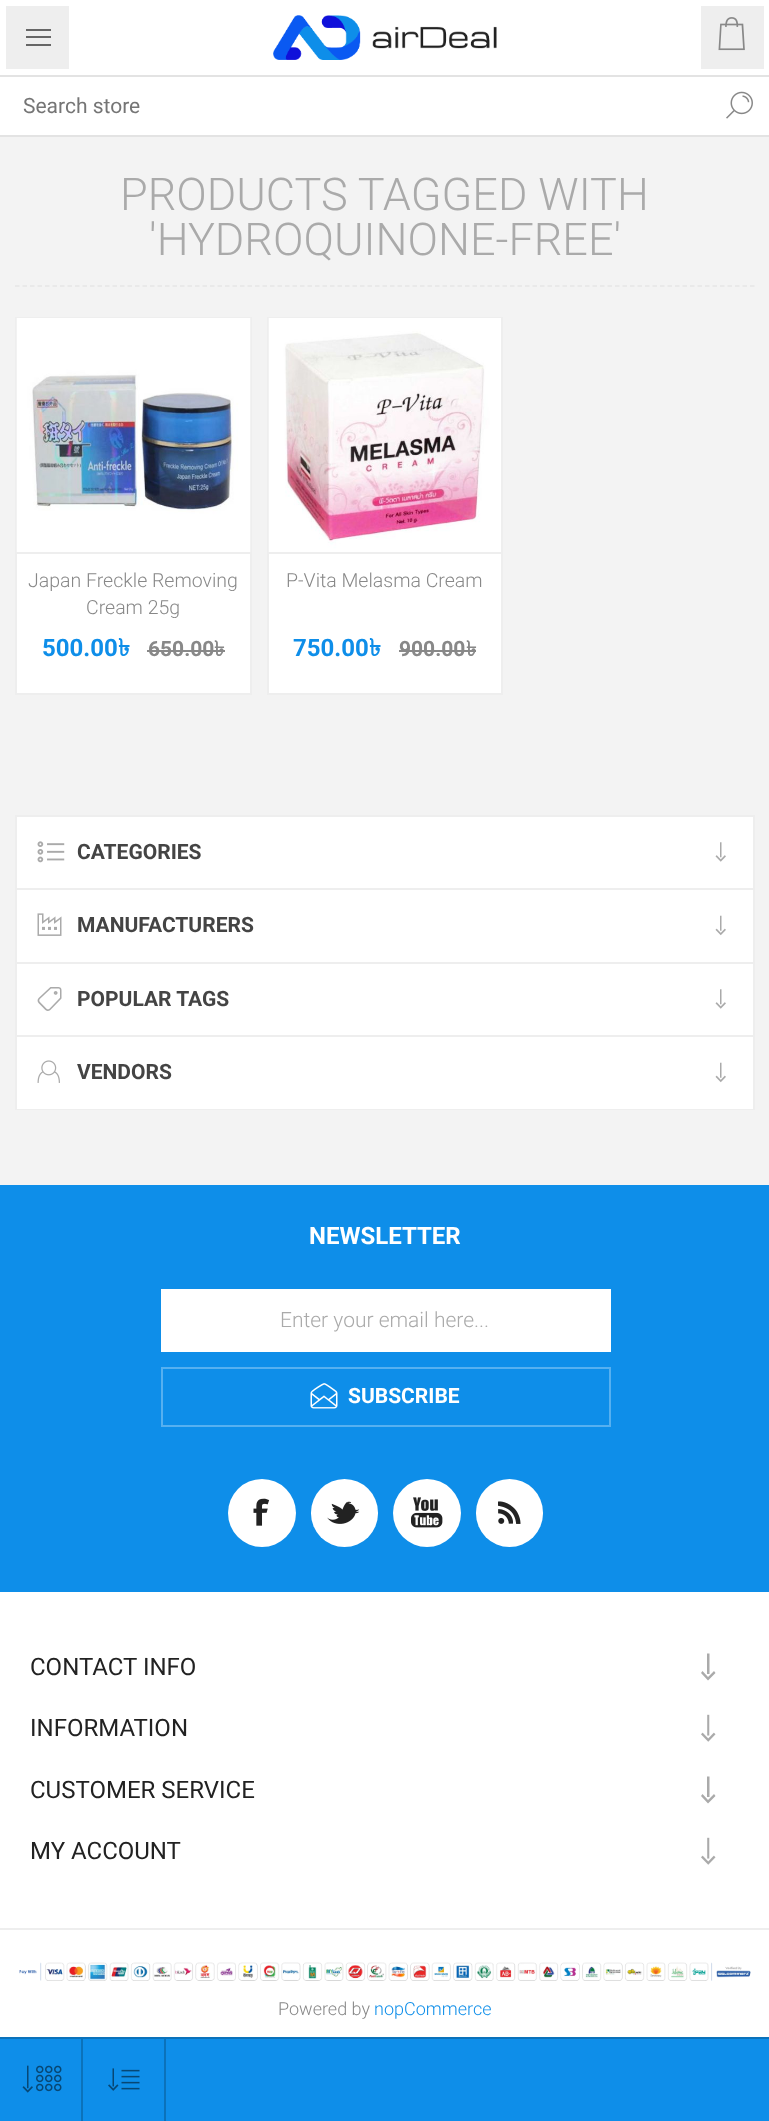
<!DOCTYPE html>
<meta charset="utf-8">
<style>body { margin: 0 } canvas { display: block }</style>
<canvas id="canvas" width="769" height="2121"></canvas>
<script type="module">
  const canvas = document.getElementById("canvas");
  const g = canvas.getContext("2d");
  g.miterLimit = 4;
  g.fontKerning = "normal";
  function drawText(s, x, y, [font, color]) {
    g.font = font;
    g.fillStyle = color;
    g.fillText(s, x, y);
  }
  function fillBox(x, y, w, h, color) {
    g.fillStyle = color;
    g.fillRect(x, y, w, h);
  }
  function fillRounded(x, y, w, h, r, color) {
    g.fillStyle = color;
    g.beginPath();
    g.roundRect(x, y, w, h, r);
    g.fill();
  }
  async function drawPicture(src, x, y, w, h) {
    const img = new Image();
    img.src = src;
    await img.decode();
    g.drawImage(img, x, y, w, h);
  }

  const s1 = ["21px Roboto", "#757575"];
  const s2 = ["300 45px Roboto", "#AAAAAA"];
  const s3 = ["300 19.5px Roboto", "#888888"];
  const s4 = ["bold 24px Roboto", "#0E8EE9"];
  const s5 = ["bold 24px Lohit Bengali", "#0E8EE9"];
  const s6 = ["bold 21px Roboto", "#888888"];
  const s7 = ["bold 21px Lohit Bengali", "#888888"];
  const s8 = ["bold 21px Roboto", "#444444"];
  const s9 = ["bold 24px Roboto", "#FFFFFF"];
  const s10 = ["300 21px Roboto", "#AAAAAA"];
  const s11 = ["bold 21px Roboto", "#FFFFFF"];
  const s12 = ["24px Roboto", "#222222"];
  const s13 = ["300 18px Roboto", "#888888"];
  const s14 = ["300 18px Roboto", "#0E8EE9"];

  fillBox(0, 0, 769, 2121, "#F3F3F3");
  g.fillStyle = "#EEEEEE";
  g.beginPath();
  g.rect(3, 3, 69, 69);
  g.fill();
  g.strokeStyle = "#FFFFFF";
  g.lineWidth = 6;
  g.stroke();
  fillBox(26, 29, 25, 2, "#666666");
  fillBox(26, 36, 25, 2, "#666666");
  fillBox(26, 44, 25, 2, "#666666");
  g.fillStyle = "#EEEEEE";
  g.beginPath();
  g.rect(698, 3, 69, 69);
  g.fill();
  g.stroke();
  await drawPicture("pic1.png", 718, 17, 27, 34);
  g.fillStyle = "#E3E3E3";
  g.beginPath();
  g.moveTo(0, 75);
  g.lineTo(0, 77);
  g.lineTo(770, 77);
  g.lineTo(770, 2);
  g.lineTo(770, 75);
  g.closePath();
  g.fill();
  fillBox(75, 0, 620, 75, "#FFFFFF");
  await drawPicture("pic2.png", 273, 15, 224, 45);
  fillBox(0, 77, 769, 58, "#FFFFFF");
  fillBox(0, 135, 769, 2, "#E3E3E3");
  drawText("Search store", 23, 113, s1);
  await drawPicture("pic3.png", 726, 91, 27, 28);
  g.beginPath();
  g.moveTo(15, 286);
  g.lineTo(754.5, 286);
  g.strokeStyle = "#E6E6E6";
  g.lineWidth = 1.5;
  g.setLineDash([4.5, 3]);
  g.stroke();
  drawText("PRODUCTS TAGGED WITH", 120, 210, s2);
  drawText("'HYDROQUINONE-FREE'", 149, 255, s2);
  fillBox(17, 554, 233, 139, "#FFFFFF");
  g.strokeStyle = "#EEEEEE";
  g.lineWidth = 2;
  g.setLineDash([]);
  g.strokeRect(16, 318, 235, 376);
  fillBox(17, 552, 234, 2, "#EEEEEE");
  await drawPicture("pic4.png", 16, 318, 235, 234);
  drawText("Japan Freckle Removing", 28, 587, s3);
  drawText("Cream 25g", 86, 614, s3);
  drawText("500.00", 42, 656, s4);
  drawText("৳", 118, 656, s5);
  drawText("650.00", 148, 656, s6);
  fillBox(147, 650, 78, 2, "#888888");
  drawText("৳", 214, 656, s7);
  fillBox(269, 554, 232, 139, "#FFFFFF");
  g.strokeRect(268, 318, 234, 376);
  fillBox(269, 552, 232, 2, "#EEEEEE");
  await drawPicture("pic5.png", 268, 318, 233, 234);
  drawText("P-Vita Melasma Cream", 286, 587, s3);
  drawText("750.00", 293, 656, s4);
  drawText("৳", 369, 656, s5);
  drawText("900.00", 399, 656, s6);
  fillBox(399, 650, 77, 2, "#888888");
  drawText("৳", 466, 656, s7);
  fillBox(0, 2039, 769, 82, "#0E8EE9");
  fillBox(0, 2037, 769, 2, "#0B72BA");
  await drawPicture("pic6.png", 22, 2065, 40, 28);
  fillBox(81, 2039, 2, 82, "#0B72BA");
  await drawPicture("pic7.png", 108, 2068, 32, 23);
  fillBox(164, 2039, 2, 82, "#0B72BA");
  fillBox(17, 817, 736, 292, "#FFFFFF");
  fillBox(15, 815, 740, 2, "#EEEEEE");
  fillBox(753, 815, 2, 295, "#EEEEEE");
  fillBox(15, 815, 2, 295, "#EEEEEE");
  fillBox(17, 888, 736, 2, "#EEEEEE");
  await drawPicture("pic8.png", 37, 841, 28, 22);
  drawText("CATEGORIES", 77, 859, s8);
  await drawPicture("pic9.png", 715, 842, 11, 20);
  fillBox(17, 962, 736, 2, "#EEEEEE");
  await drawPicture("pic10.png", 37, 913, 25, 23);
  drawText("MANUFACTURERS", 77, 932, s8);
  await drawPicture("pic11.png", 715, 915, 11, 21);
  fillBox(17, 1035, 736, 2, "#EEEEEE");
  await drawPicture("pic12.png", 37, 987, 25, 24);
  drawText("POPULAR TAGS", 77, 1006, s8);
  await drawPicture("pic9.png", 715, 989, 11, 20);
  fillBox(17, 1109, 736, 1, "#EEEEEE");
  await drawPicture("pic13.png", 37, 1060, 23, 23);
  drawText("VENDORS", 77, 1079, s8);
  await drawPicture("pic11.png", 715, 1062, 11, 21);
  fillBox(0, 1592, 769, 336, "#FFFFFF");
  fillBox(0, 1185, 769, 407, "#0E8EE9");
  drawText("NEWSLETTER", 309, 1244, s9);
  fillBox(161, 1289, 450, 63, "#FFFFFF");
  drawText("Enter your email here...", 280, 1327, s10);
  await drawPicture("pic14.png", 310, 1383, 28, 26);
  g.strokeStyle = "#56B0F0";
  g.strokeRect(162, 1368, 448, 58);
  drawText("SUBSCRIBE", 348, 1403, s11);
  g.beginPath();
  g.arc(262, 1513, 34, 0, Math.PI * 2);
  g.fill();
  await drawPicture("pic15.png", 253, 1498, 17, 28);
  fillRounded(311, 1479, 67, 68, 33.5, "#FFFFFF");
  await drawPicture("pic16.png", 327, 1501, 33, 23);
  g.beginPath();
  g.arc(427, 1513, 34, 0, Math.PI * 2);
  g.fill();
  await drawPicture("pic17.png", 411, 1497, 32, 31);
  fillRounded(476, 1479, 67, 68, 33.5, "#FFFFFF");
  await drawPicture("pic18.png", 498, 1501, 23, 23);
  drawText("CONTACT INFO", 30, 1675, s12);
  g.fillStyle = "#AAAAAA";
  g.beginPath();
  g.moveTo(709.5, 1674);
  g.lineTo(707, 1674);
  g.lineTo(707, 1653.5);
  g.lineTo(709.5, 1653.5);
  g.closePath();
  g.moveTo(715.5, 1673);
  g.lineTo(714, 1671);
  g.lineTo(708, 1677);
  g.lineTo(702.5, 1671);
  g.lineTo(701, 1673);
  g.lineTo(708, 1680.5);
  g.closePath();
  g.fill();
  drawText("INFORMATION", 30, 1736, s12);
  await drawPicture("pic19.png", 701, 1714, 15, 28);
  drawText("CUSTOMER SERVICE", 30, 1798, s12);
  g.fillStyle = "#AAAAAA";
  g.beginPath();
  g.moveTo(709.5, 1797);
  g.lineTo(707, 1797);
  g.lineTo(707, 1776.5);
  g.lineTo(709.5, 1776.5);
  g.closePath();
  g.moveTo(715.5, 1796);
  g.lineTo(714, 1794);
  g.lineTo(708, 1800);
  g.lineTo(702.5, 1794);
  g.lineTo(701, 1796);
  g.lineTo(708, 1803.5);
  g.closePath();
  g.fill();
  drawText("MY ACCOUNT", 30, 1859, s12);
  await drawPicture("pic19.png", 701, 1837, 15, 28);
  fillBox(0, 1930, 769, 107, "#FFFFFF");
  fillBox(0, 1928, 769, 2, "#EEEEEE");
  await drawPicture("pic20.png", 19, 1962, 732, 19);
  drawText("Powered by", 278, 2015, s13);
  drawText("nopCommerce", 374, 2015, s14);
</script>
